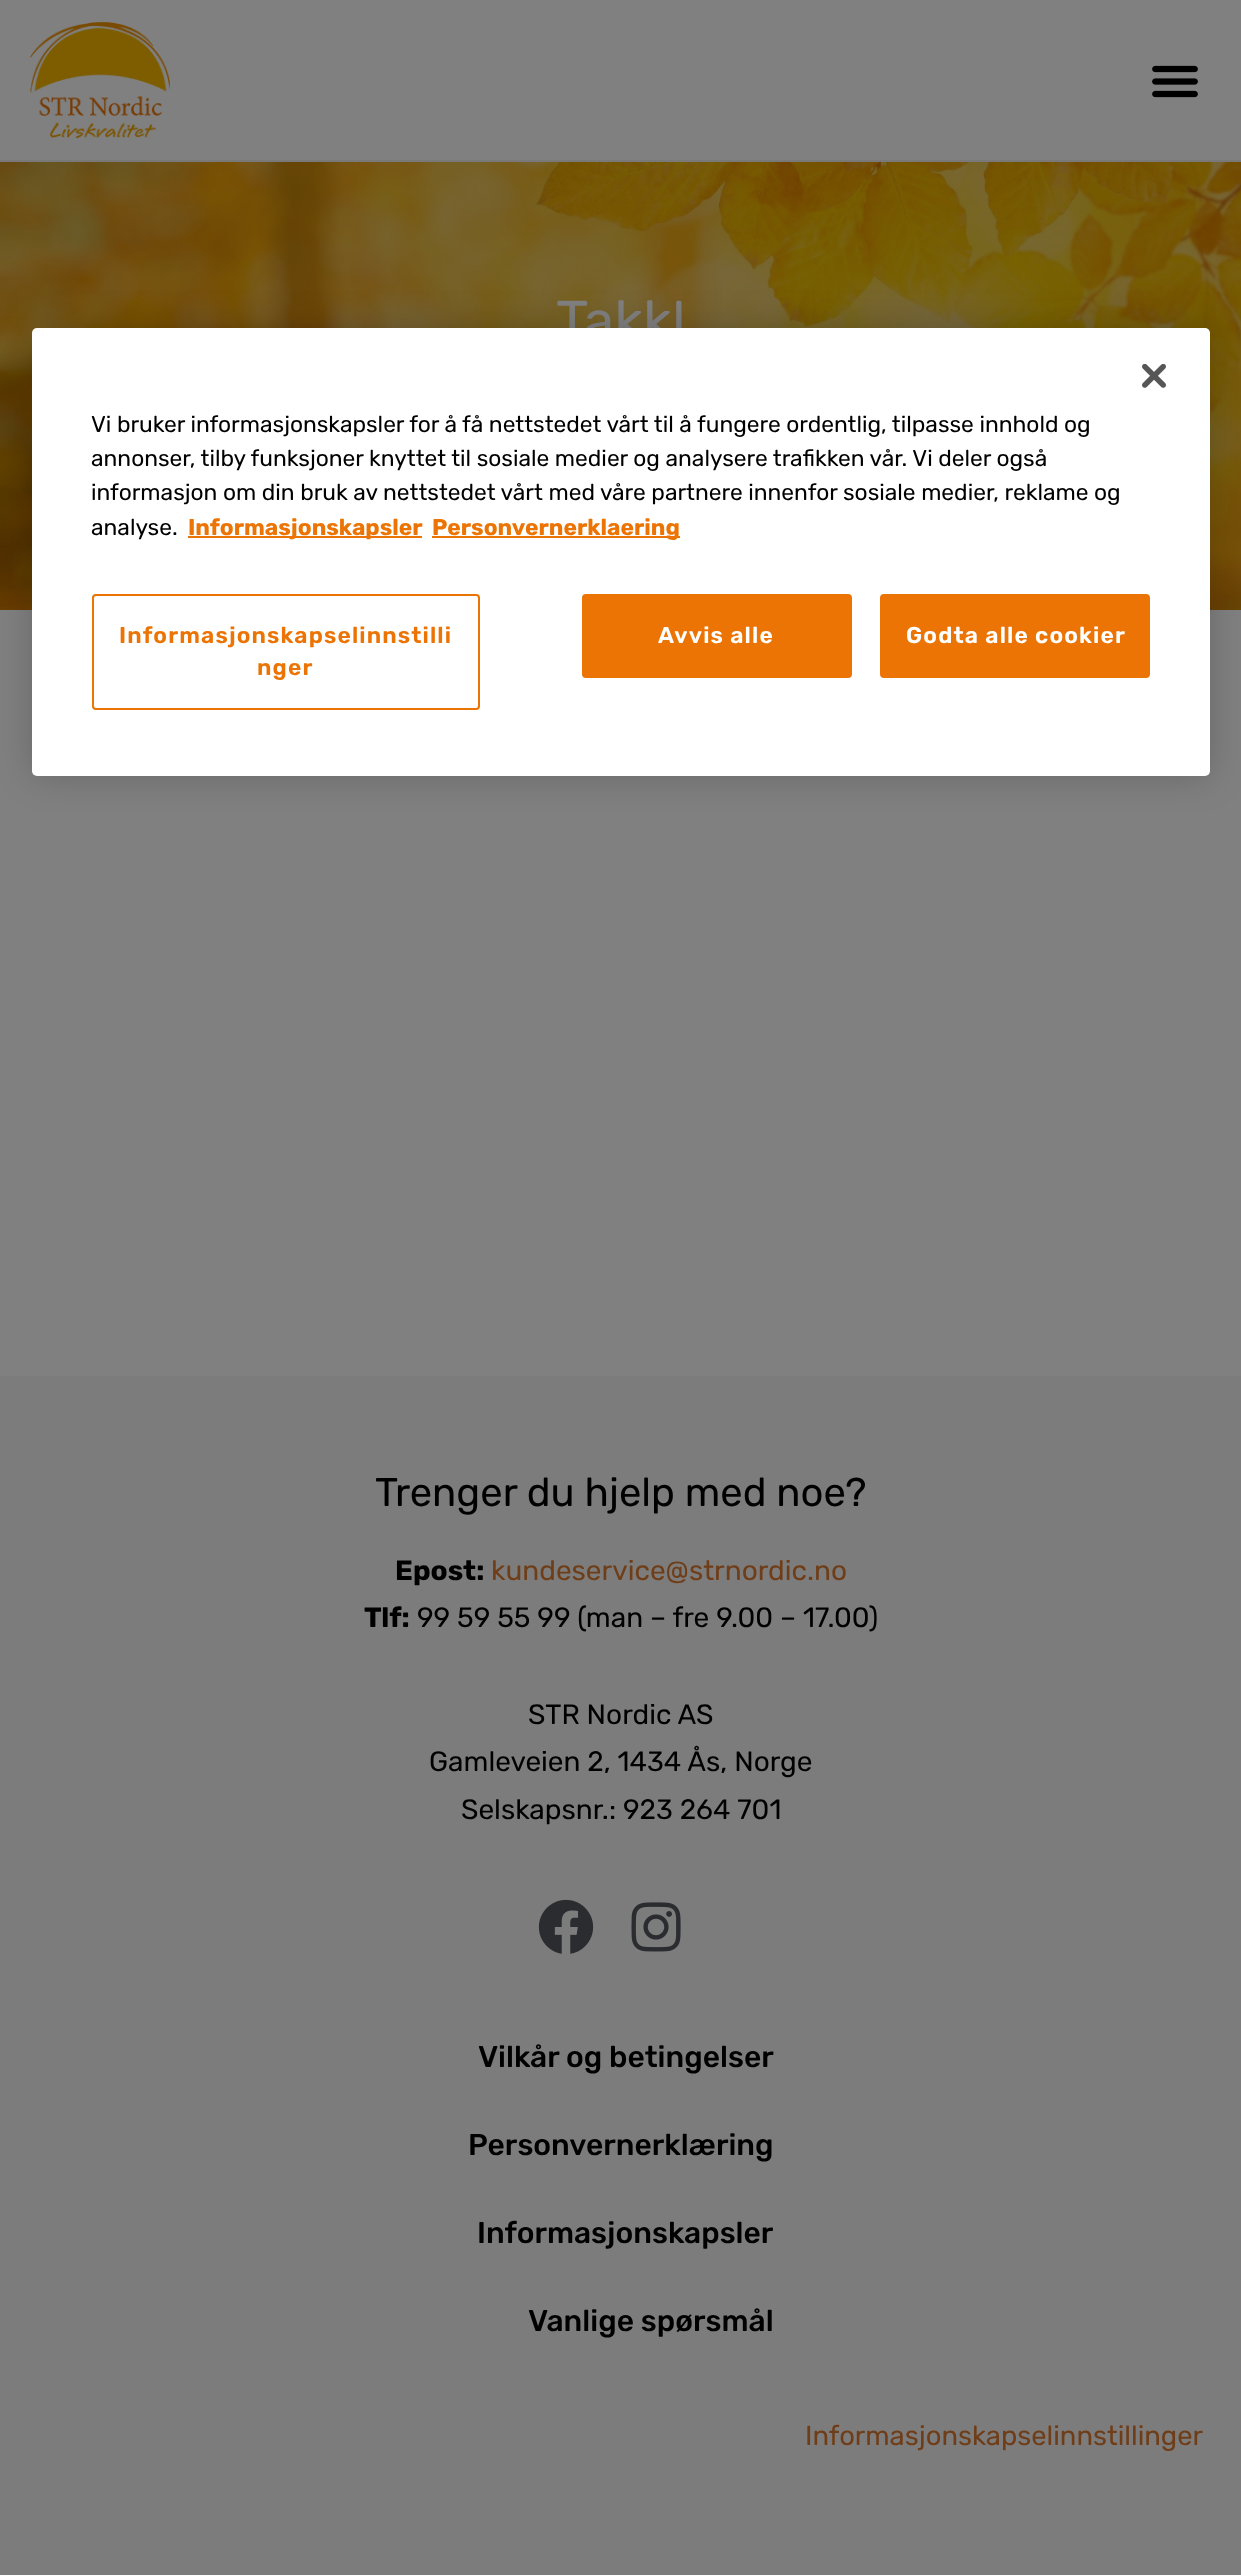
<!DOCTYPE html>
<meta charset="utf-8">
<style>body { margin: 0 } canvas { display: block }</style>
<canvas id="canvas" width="1241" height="2575"></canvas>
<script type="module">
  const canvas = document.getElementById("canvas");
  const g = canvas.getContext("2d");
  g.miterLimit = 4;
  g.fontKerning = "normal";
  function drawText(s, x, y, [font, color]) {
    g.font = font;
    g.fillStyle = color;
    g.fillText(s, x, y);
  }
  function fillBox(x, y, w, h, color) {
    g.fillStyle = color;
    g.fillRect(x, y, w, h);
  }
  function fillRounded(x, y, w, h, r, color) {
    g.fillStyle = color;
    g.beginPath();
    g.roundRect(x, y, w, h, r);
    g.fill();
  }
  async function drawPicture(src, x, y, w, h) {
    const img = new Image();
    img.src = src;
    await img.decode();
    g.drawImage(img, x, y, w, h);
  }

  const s1 = ["56px Rubik", "#808080"];
  const s2 = ["40px Rubik", "#000000"];
  const s3 = ["bold 28px Rubik", "#000000"];
  const s4 = ["28px Rubik", "#6F3D17"];
  const s5 = ["28px Rubik", "#000000"];
  const s6 = ["500 30px Rubik", "#000000"];
  const s7 = ["27.4px Rubik", "#6F3D17"];
  const s8 = ["22.75px Rubik", "#000000"];
  const s9 = ["bold 22.75px Rubik", "#EC7404"];
  const s10 = ["600 22.75px Rubik", "#EC7404"];
  const s11 = ["600 22.75px Rubik", "#FFFFFF"];

  fillBox(0, 0, 1241, 2575, "#808080");
  fillBox(0, 160, 1241, 2, "#797979");
  await drawPicture("pic1.png", 30, 22, 140, 116);
  await drawPicture("pic2.png", 1152, 65, 46, 33);
  await drawPicture("pic3.png", 0, 162, 1241, 448);
  drawText("Takk!", 556, 340, s1);
  fillBox(0, 1376, 1241, 1199, "#7C7C7C");
  drawText("Trenger du hjelp med noe?", 375, 1506, s2);
  drawText("Epost:", 395, 1580, s3);
  drawText("kundeservice@strnordic.no", 491, 1580, s4);
  drawText("Tlf:", 364, 1627, s3);
  drawText("99 59 55 99 (man – fre 9.00 – 17.00)", 417, 1627, s5);
  drawText("STR Nordic AS", 528, 1724, s5);
  drawText("Gamleveien 2, 1434 Ås, Norge", 429, 1771, s5);
  drawText("Selskapsnr.: 923 264 701", 461, 1819, s5);
  await drawPicture("pic4.png", 538, 1899, 56, 55);
  await drawPicture("pic5.png", 631, 1902, 50, 50);
  drawText("Vilkår og betingelser", 478, 2067, s6);
  drawText("Personvernerklæring", 468, 2155, s6);
  drawText("Informasjonskapsler", 477, 2243, s6);
  drawText("Vanlige spørsmål", 528, 2331, s6);
  drawText("Informasjonskapselinnstillinger", 805, 2445, s7);
  g.fillStyle = "rgba(0, 0, 0, 0.2)";
  g.filter = "blur(18px)";
  g.beginPath();
  g.roundRect(32, 328, 1178, 448, 5);
  g.fill();
  g.filter = "none";
  fillRounded(32, 328, 1178, 448, 5, "#FFFFFF");
  await drawPicture("pic6.png", 1142, 364, 24, 24);
  drawText("Vi bruker informasjonskapsler for å få nettstedet vårt til å fungere ordentlig, tilpasse innhold og", 91, 432, s8);
  drawText("annonser, tilby funksjoner knyttet til sosiale medier og analysere trafikken vår. Vi deler også", 91, 466, s8);
  drawText("informasjon om din bruk av nettstedet vårt med våre partnere innenfor sosiale medier, reklame og", 91, 500, s8);
  drawText("analyse.", 91, 535, s8);
  fillBox(188, 536, 234, 2, "#EC7404");
  drawText("Informasjonskapsler", 188, 535, s9);
  fillBox(432, 536, 248, 2, "#EC7404");
  drawText("Personvernerklaering", 432, 535, s9);
  g.beginPath();
  g.roundRect(93, 595, 386, 114, 3);
  g.strokeStyle = "#EC7404";
  g.lineWidth = 2;
  g.stroke();
  g.letterSpacing = "1.15px";
  drawText("Informasjonskapselinnstilli", 119, 643, s10);
  drawText("nger", 257, 675, s10);
  g.beginPath();
  g.roundRect(583, 595, 268, 82, 3);
  g.fill();
  g.stroke();
  drawText("Avvis alle", 658, 643, s11);
  g.fillStyle = "#EC7404";
  g.beginPath();
  g.roundRect(881, 595, 268, 82, 3);
  g.fill();
  g.stroke();
  drawText("Godta alle cookier", 906, 643, s11);
</script>
